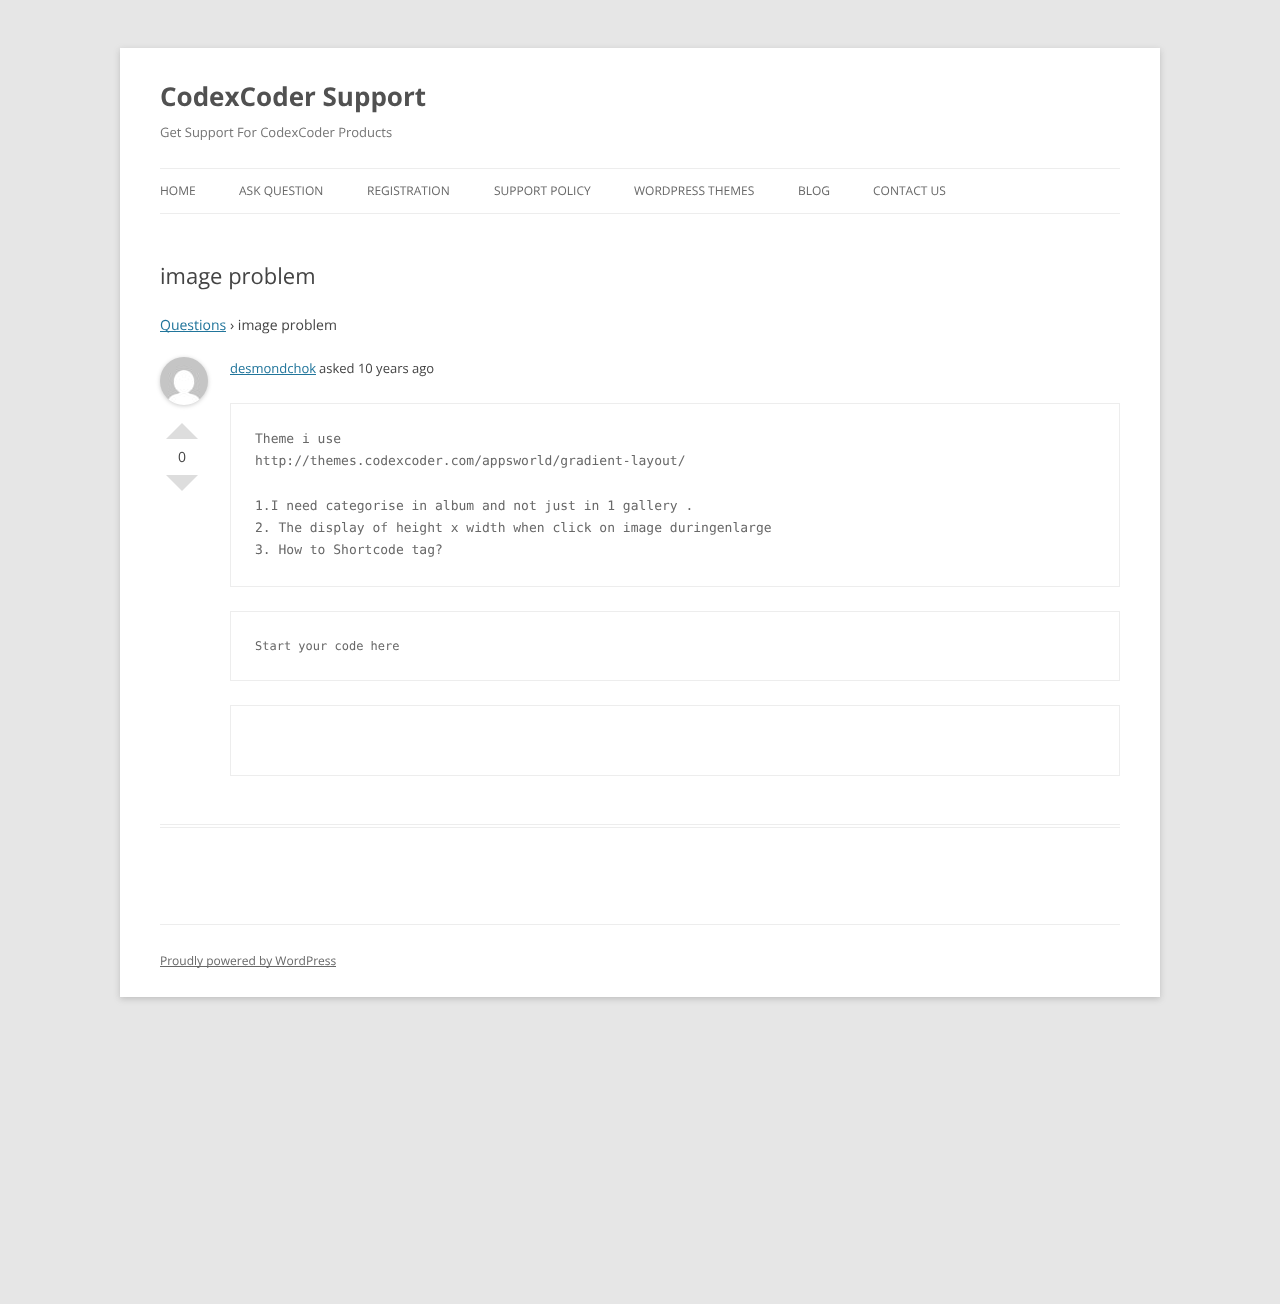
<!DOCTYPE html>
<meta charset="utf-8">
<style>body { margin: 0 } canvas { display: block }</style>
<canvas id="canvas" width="1280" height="1304"></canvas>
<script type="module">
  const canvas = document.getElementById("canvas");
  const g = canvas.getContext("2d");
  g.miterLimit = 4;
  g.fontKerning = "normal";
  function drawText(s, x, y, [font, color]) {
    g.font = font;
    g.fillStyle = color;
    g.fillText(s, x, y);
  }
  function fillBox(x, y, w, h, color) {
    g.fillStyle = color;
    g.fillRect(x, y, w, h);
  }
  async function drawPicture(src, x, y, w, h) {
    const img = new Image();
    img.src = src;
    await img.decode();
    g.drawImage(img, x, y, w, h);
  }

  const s1 = ["bold 26px Open Sans", "#515151"];
  const s2 = ["13px Open Sans", "#757575"];
  const s3 = ["12px Open Sans", "#686868"];
  const s4 = ["22px Open Sans", "#444444"];
  const s5 = ["14px Open Sans", "#21759B"];
  const s6 = ["14px Open Sans", "#444444"];
  const s7 = ["13px Open Sans", "#21759B"];
  const s8 = ["13px Open Sans", "#444444"];
  const s9 = ["13px DejaVu Sans Mono", "#686868"];
  const s10 = ["12px DejaVu Sans Mono", "#686868"];

  fillBox(0, 0, 1280, 1304, "#E6E6E6");
  g.fillStyle = "rgba(100, 100, 100, 0.3)";
  g.filter = "blur(3px)";
  g.beginPath();
  g.rect(120, 50, 1040, 949);
  g.fill();
  g.filter = "none";
  fillBox(120, 48, 1040, 949, "#FFFFFF");
  drawText("CodexCoder Support", 160, 106, s1);
  drawText("Get Support For CodexCoder Products", 160, 137, s2);
  fillBox(160, 168, 960, 1, "#EDEDED");
  fillBox(160, 213, 960, 1, "#EDEDED");
  drawText("HOME", 160, 195, s3);
  drawText("ASK QUESTION", 239, 195, s3);
  drawText("REGISTRATION", 367, 195, s3);
  drawText("SUPPORT POLICY", 494, 195, s3);
  drawText("WORDPRESS THEMES", 634, 195, s3);
  drawText("BLOG", 798, 195, s3);
  drawText("CONTACT US", 873, 195, s3);
  fillBox(160, 824, 960, 1, "#EDEDED");
  fillBox(160, 827, 960, 1, "#EDEDED");
  drawText("image problem", 160, 284, s4);
  fillBox(160, 331, 66, 1, "#21759B");
  drawText("Questions", 160, 330, s5);
  drawText("› image problem", 230, 330, s6);
  g.fillStyle = "rgba(0, 0, 0, 0.2)";
  g.filter = "blur(2px)";
  g.beginPath();
  g.roundRect(160, 358, 48, 48, 24);
  g.fill();
  g.filter = "none";
  await drawPicture("pic1.png", 160, 357, 48, 48);
  drawText("desmondchok", 230, 373, s7);
  fillBox(230, 374, 86, 1, "#21759B");
  drawText("asked 10 years ago", 319, 373, s8);
  g.fillStyle = "#DDDDDD";
  g.beginPath();
  g.moveTo(198, 439);
  g.lineTo(166, 439);
  g.lineTo(182, 423);
  g.closePath();
  g.fill();
  drawText("0", 178, 462, s6);
  g.fillStyle = "#DDDDDD";
  g.beginPath();
  g.moveTo(166, 475);
  g.lineTo(198, 475);
  g.lineTo(182, 491);
  g.closePath();
  g.fill();
  g.strokeStyle = "#EDEDED";
  g.strokeRect(230.5, 403.5, 889, 183);
  drawText("Theme i use", 255, 443, s9);
  drawText("http://themes.codexcoder.com/appsworld/gradient-layout/", 255, 465, s9);
  drawText("1.I need categorise in album and not just in 1 gallery .", 255, 510, s9);
  drawText("2. The display of height x width when click on image duringenlarge", 255, 532, s9);
  drawText("3. How to Shortcode tag?", 255, 554, s9);
  g.strokeRect(230.5, 611.5, 889, 69);
  drawText("Start your code here", 255, 650, s10);
  g.strokeRect(230.5, 705.5, 889, 70);
  fillBox(160, 924, 960, 1, "#EDEDED");
  fillBox(160, 966, 176, 1, "#686868");
  drawText("Proudly powered by WordPress", 160, 965, s3);
</script>
